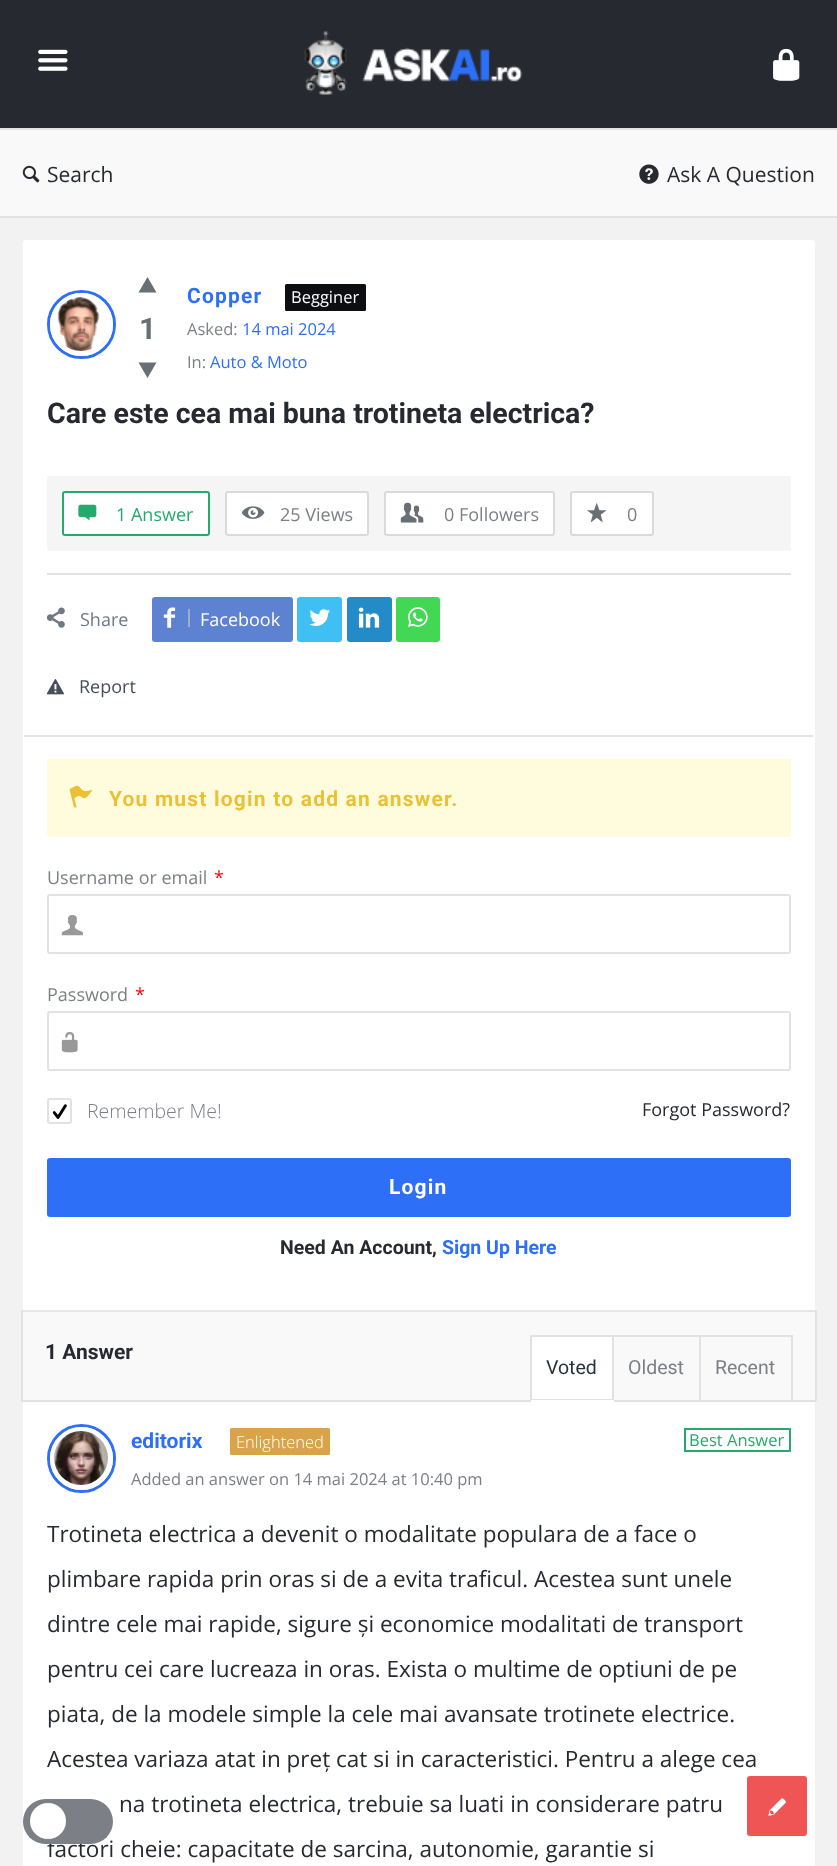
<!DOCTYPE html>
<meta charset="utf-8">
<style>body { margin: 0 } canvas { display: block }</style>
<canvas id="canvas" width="837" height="1866"></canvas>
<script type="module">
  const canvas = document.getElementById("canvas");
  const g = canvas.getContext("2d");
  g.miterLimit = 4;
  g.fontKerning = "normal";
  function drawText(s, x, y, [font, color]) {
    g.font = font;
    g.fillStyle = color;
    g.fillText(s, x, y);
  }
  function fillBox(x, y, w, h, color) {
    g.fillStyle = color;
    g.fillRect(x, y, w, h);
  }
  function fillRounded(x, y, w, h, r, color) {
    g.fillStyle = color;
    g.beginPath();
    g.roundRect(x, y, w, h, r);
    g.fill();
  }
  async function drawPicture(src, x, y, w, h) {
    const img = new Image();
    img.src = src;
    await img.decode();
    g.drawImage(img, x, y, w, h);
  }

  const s1 = ["21px Open Sans", "#272930"];
  const s2 = ["bold 21px Roboto", "#2D6FF7"];
  const s3 = ["16.5px Open Sans", "#FFFFFF"];
  const s4 = ["16.5px Open Sans", "#7C7F85"];
  const s5 = ["16.5px Open Sans", "#2D6FF7"];
  const s6 = ["bold 28.5px Roboto", "#272930"];
  const s7 = ["bold 30px Roboto", "#677075"];
  const s8 = ["18px Open Sans", "#26AA6C"];
  const s9 = ["18px Open Sans", "#7C7F85"];
  const s10 = ["18px Open Sans", "#707885"];
  const s11 = ["18px Open Sans", "#FFFFFF"];
  const s12 = ["18px Open Sans", "#464E5B"];
  const s13 = ["bold 21px Roboto", "#EBC035"];
  const s14 = ["18px Open Sans", "#FF0000"];
  const s15 = ["300 19.5px Open Sans", "#7C7F85"];
  const s16 = ["18px Open Sans", "#272930"];
  const s17 = ["bold 21px Roboto", "#FFFFFF"];
  const s18 = ["bold 19.5px Roboto", "#272930"];
  const s19 = ["bold 19.5px Roboto", "#2D6FF7"];
  const s20 = ["bold 21px Roboto", "#272930"];
  const s21 = ["19.5px Roboto", "#26333B"];
  const s22 = ["19.5px Roboto", "#7C7F85"];
  const s23 = ["300 16.5px Open Sans", "#FFFFFF"];
  const s24 = ["16.5px Open Sans", "#26AA6C"];
  const s25 = ["22.5px Open Sans", "#272930"];

  fillBox(0, 0, 837, 1866, "#F2F2F2");
  fillBox(0, 0, 837, 128, "#272930");
  await drawPicture("pic1.png", 38, 49, 30, 22);
  await drawPicture("pic2.png", 304, 31, 219, 64);
  await drawPicture("pic3.png", 773, 48, 27, 33);
  fillBox(0, 130, 837, 86, "#F9F9F9");
  fillBox(0, 128, 837, 2, "#E1E3E3");
  fillBox(0, 216, 837, 2, "#E1E3E3");
  await drawPicture("pic4.png", 22, 165, 18, 18);
  drawText("Search", 47, 182, s1);
  await drawPicture("pic5.png", 639, 164, 20, 20);
  drawText("Ask A Question", 667, 182, s1);
  fillRounded(23, 240, 792, 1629, 3, "#FFFFFF");
  fillBox(24, 240, 1, 1, "rgba(255, 255, 255, 0.6)");
  g.letterSpacing = "1.2px";
  drawText("Copper", 187, 303, s2);
  fillRounded(285, 284, 81, 27, 1.5, "#0D0E11");
  g.letterSpacing = "0px";
  drawText("Begginer", 291, 303, s3);
  drawText("Asked:", 187, 335, s4);
  drawText("14 mai 2024", 242, 335, s5);
  drawText("In:", 187, 368, s4);
  drawText("Auto & Moto", 210, 368, s5);
  drawText("Care este cea mai buna trotineta electrica?", 47, 423, s6);
  g.beginPath();
  g.arc(81.5, 324.5, 33, 0, Math.PI * 2);
  g.strokeStyle = "#2D6FF7";
  g.lineWidth = 3;
  g.stroke();
  g.beginPath();
  g.arc(81.5, 324.5, 29, 0, Math.PI * 2);
  g.strokeStyle = "#FFFFFF";
  g.lineWidth = 5;
  g.stroke();
  await drawPicture("pic6.png", 57, 297, 43, 54);
  g.fillStyle = "#677075";
  g.beginPath();
  g.moveTo(138.5, 292.5);
  g.lineTo(147.5, 277);
  g.lineTo(156.5, 292.5);
  g.closePath();
  g.fill();
  drawText("1", 139, 339, s7);
  g.beginPath();
  g.moveTo(156.5, 362.5);
  g.lineTo(147.5, 378);
  g.lineTo(138.5, 362.5);
  g.closePath();
  g.fill();
  fillRounded(47, 476, 744, 75, 3, "#F5F5F5");
  g.fillStyle = "#FFFFFF";
  g.beginPath();
  g.roundRect(63, 492, 146, 43, 2);
  g.fill();
  g.strokeStyle = "#26AA6C";
  g.lineWidth = 2;
  g.stroke();
  await drawPicture("pic7.png", 78, 504, 19, 17);
  drawText("1 Answer", 116, 521, s8);
  g.fillStyle = "#FFFFFF";
  g.beginPath();
  g.roundRect(226, 492, 142, 43, 2);
  g.fill();
  g.strokeStyle = "#D9DADB";
  g.stroke();
  await drawPicture("pic8.png", 241, 506, 24, 13);
  drawText("25 Views", 280, 521, s9);
  g.fillStyle = "#FFFFFF";
  g.beginPath();
  g.roundRect(385, 492, 169, 43, 2);
  g.fill();
  g.stroke();
  await drawPicture("pic9.png", 400, 502, 24, 21);
  drawText("0 Followers", 444, 521, s9);
  g.fillStyle = "#FFFFFF";
  g.beginPath();
  g.roundRect(571, 492, 82, 43, 2);
  g.fill();
  g.stroke();
  await drawPicture("pic10.png", 587, 502, 20, 21);
  drawText("0", 627, 521, s9);
  fillBox(47, 573, 744, 2, "#E1E3E3");
  await drawPicture("pic11.png", 46, 607, 19, 21);
  drawText("Share", 80, 626, s10);
  fillRounded(152, 597, 141, 45, 3, "#5D82D1");
  fillBox(188, 609, 2, 18, "#9AADD4");
  await drawPicture("pic12.png", 163, 607, 13, 21);
  drawText("Facebook", 200, 626, s11);
  fillRounded(297, 597, 45, 45, 3, "#40BFF5");
  await drawPicture("pic13.png", 309, 609, 21, 17);
  fillRounded(347, 597, 45, 45, 3, "#238CC8");
  await drawPicture("pic14.png", 358, 607, 22, 21);
  fillRounded(396, 597, 44, 45, 3, "#43D854");
  await drawPicture("pic15.png", 408, 607, 20, 20);
  await drawPicture("pic16.png", 46, 679, 19, 16);
  drawText("Report", 79, 693, s12);
  fillBox(24, 735, 789, 2, "#E4E6E6");
  fillRounded(47, 759, 744, 78, 3, "#FFFCDD");
  await drawPicture("pic17.png", 69, 785, 24, 23);
  g.letterSpacing = "1.2px";
  drawText("You must login to add an answer.", 109, 806, s13);
  g.letterSpacing = "0px";
  drawText("Username or email", 47, 884, s9);
  drawText("*", 214, 884, s14);
  g.beginPath();
  g.roundRect(48, 895, 742, 58, 2);
  g.strokeStyle = "#E1E3E3";
  g.stroke();
  await drawPicture("pic18.png", 61, 915, 22, 21);
  drawText("Password", 47, 1001, s9);
  drawText("*", 135, 1001, s14);
  g.beginPath();
  g.roundRect(48, 1012, 742, 58, 2);
  g.stroke();
  await drawPicture("pic19.png", 61, 1032, 17, 21);
  g.beginPath();
  g.roundRect(48, 1099, 23, 24, 2);
  g.stroke();
  await drawPicture("pic20.png", 52, 1104, 15, 15);
  drawText("Remember Me!", 87, 1118, s15);
  drawText("Forgot Password?", 642, 1116, s16);
  fillRounded(47, 1158, 744, 59, 3, "#2D6FF7");
  g.letterSpacing = "1.2px";
  drawText("Login", 389, 1194, s17);
  g.letterSpacing = "0px";
  drawText("Need An Account,", 280, 1254, s18);
  drawText("Sign Up Here", 442, 1254, s19);
  fillBox(23, 1312, 792, 88, "#F9F9F9");
  fillBox(21, 1310, 795, 2, "#E4E6E6");
  fillBox(815, 1310, 2, 91, "#E1E3E3");
  fillBox(21, 1400, 795, 2, "#E1E3E3");
  fillBox(21, 1310, 2, 91, "#E1E3E3");
  drawText("1 Answer", 45, 1359, s20);
  g.fillStyle = "#FFFFFF";
  g.beginPath();
  g.rect(531, 1336, 82, 64);
  g.fill();
  g.stroke();
  drawText("Voted", 546, 1374, s21);
  fillBox(531, 1400, 83, 2, "#FFFFFF");
  fillBox(614, 1335, 178, 2, "#E1E3E3");
  fillBox(699, 1335, 2, 66, "#E1E3E3");
  drawText("Oldest", 628, 1374, s22);
  fillBox(791, 1335, 2, 66, "#E1E3E3");
  drawText("Recent", 715, 1374, s22);
  g.beginPath();
  g.arc(81.5, 1458.5, 33, 0, Math.PI * 2);
  g.strokeStyle = "#2D6FF7";
  g.lineWidth = 3;
  g.stroke();
  g.beginPath();
  g.arc(81.5, 1458.5, 29, 0, Math.PI * 2);
  g.strokeStyle = "#FFFFFF";
  g.lineWidth = 5;
  g.stroke();
  await drawPicture("pic21.png", 54, 1431, 54, 54);
  drawText("editorix", 131, 1448, s2);
  fillRounded(230, 1428, 100, 27, 1.5, "#D9A34A");
  drawText("Enlightened", 236, 1448, s23);
  drawText("Added an answer on 14 mai 2024 at 10:40 pm", 131, 1485, s4);
  g.strokeStyle = "#26AA6C";
  g.lineWidth = 2;
  g.strokeRect(685, 1429, 105, 22);
  drawText("Best Answer", 689, 1446, s24);
  drawText("Trotineta electrica a devenit o modalitate populara de a face o", 47, 1542, s25);
  drawText("plimbare rapida prin oras si de a evita traficul. Acestea sunt unele", 47, 1587, s25);
  drawText("dintre cele mai rapide, sigure și economice modalitati de transport", 47, 1632, s25);
  drawText("pentru cei care lucreaza in oras. Exista o multime de optiuni de pe", 47, 1677, s25);
  drawText("piata, de la modele simple la cele mai avansate trotinete electrice.", 47, 1722, s25);
  drawText("Acestea variaza atat in preț cat si in caracteristici. Pentru a alege cea", 47, 1767, s25);
  drawText("na trotineta electrica, trebuie sa luati in considerare patru", 119, 1812, s25);
  drawText("factori cheie: capacitate de sarcina, autonomie, garantie si", 47, 1857, s25);
  fillRounded(23, 1799, 90, 45, 22.5, "#7C7F85");
  g.fillStyle = "#FFFFFF";
  g.beginPath();
  g.arc(48, 1821, 18, 0, Math.PI * 2);
  g.fill();
  fillRounded(747, 1776, 60, 60, 3, "#F05555");
  await drawPicture("pic22.png", 768, 1798, 18, 18);
</script>
